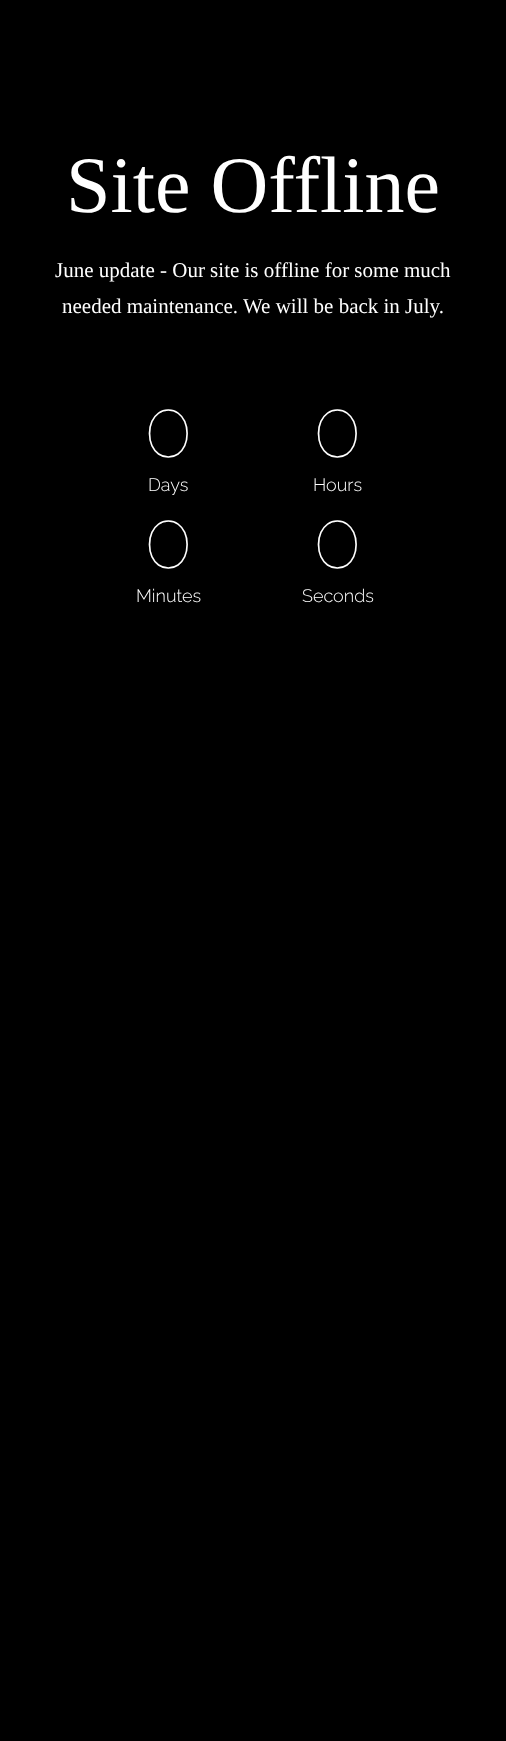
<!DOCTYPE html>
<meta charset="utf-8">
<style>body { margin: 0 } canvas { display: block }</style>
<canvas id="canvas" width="506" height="1741"></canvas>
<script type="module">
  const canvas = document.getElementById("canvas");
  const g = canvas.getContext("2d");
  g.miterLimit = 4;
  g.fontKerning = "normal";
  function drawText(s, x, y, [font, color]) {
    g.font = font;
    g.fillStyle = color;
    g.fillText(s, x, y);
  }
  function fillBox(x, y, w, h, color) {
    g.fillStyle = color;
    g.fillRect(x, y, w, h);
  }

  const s1 = ["80px Liberation Serif", "#FFFFFF"];
  const s2 = ["21px Liberation Serif", "#FFFFFF"];
  const s3 = ["100 80px Raleway", "#FFFFFF"];
  const s4 = ["300 18px Raleway", "#FFFFFF"];

  fillBox(0, 0, 506, 1741, "#000000");
  drawText("Site Offline", 66, 212, s1);
  drawText("June update - Our site is offline for some much", 55, 277, s2);
  drawText("needed maintenance. We will be back in July.", 62, 313, s2);
  drawText("0", 144, 457, s3);
  drawText("Days", 148, 491, s4);
  drawText("0", 313, 457, s3);
  drawText("Hours", 313, 491, s4);
  drawText("0", 144, 568, s3);
  drawText("Minutes", 136, 602, s4);
  drawText("0", 313, 568, s3);
  drawText("Seconds", 302, 602, s4);
</script>
